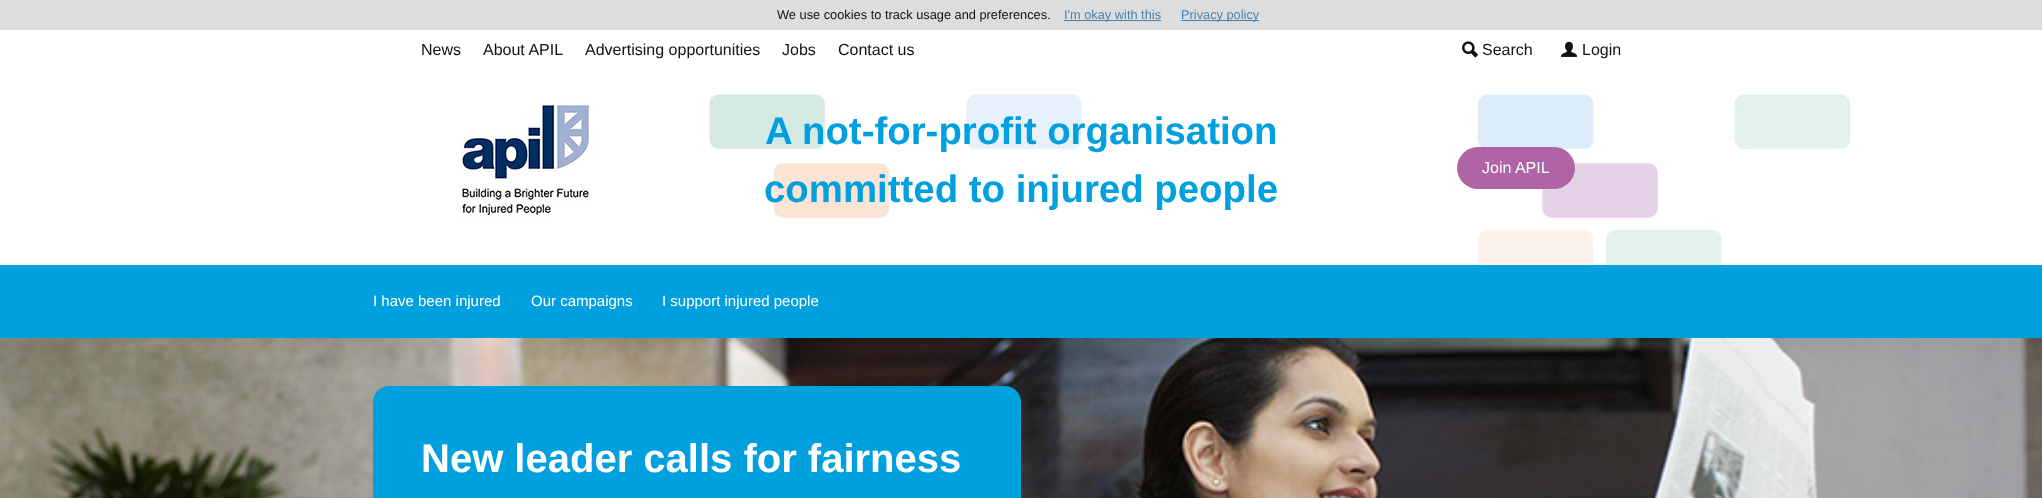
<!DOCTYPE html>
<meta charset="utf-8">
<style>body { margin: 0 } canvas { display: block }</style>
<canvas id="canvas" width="2042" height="498"></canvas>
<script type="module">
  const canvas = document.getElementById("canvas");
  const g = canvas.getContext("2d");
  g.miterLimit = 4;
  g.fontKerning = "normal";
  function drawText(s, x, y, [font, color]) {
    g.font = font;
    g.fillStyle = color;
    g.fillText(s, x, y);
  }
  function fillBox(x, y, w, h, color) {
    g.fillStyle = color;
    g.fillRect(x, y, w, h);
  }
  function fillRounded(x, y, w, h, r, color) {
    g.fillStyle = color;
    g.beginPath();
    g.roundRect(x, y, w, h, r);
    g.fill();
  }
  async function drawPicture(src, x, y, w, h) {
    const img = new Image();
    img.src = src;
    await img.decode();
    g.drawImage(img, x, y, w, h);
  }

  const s1 = ["12.8px Liberation Sans", "#111111"];
  const s2 = ["12.8px Liberation Sans", "#4682B4"];
  const s3 = ["16px Liberation Sans", "#111111"];
  const s4 = ["bold 38.4px Liberation Sans", "#00A0DE"];
  const s5 = ["16px Liberation Sans", "#FFFFFF"];
  const s6 = ["15px Liberation Sans", "#FFFFFF"];
  const s7 = ["bold 40px Liberation Sans", "#FFFFFF"];

  fillBox(0, 0, 2042, 498, "#FFFFFF");
  fillBox(0, 0, 2042, 30, "#DDDDDD");
  drawText("We use cookies to track usage and preferences.", 777, 19, s1);
  fillBox(1064, 20, 97, 1, "#4682B4");
  drawText("I'm okay with this", 1064, 19, s2);
  fillBox(1181, 20, 78, 1, "#4682B4");
  drawText("Privacy policy", 1181, 19, s2);
  drawText("News", 421, 55, s3);
  drawText("About APIL", 483, 55, s3);
  drawText("Advertising opportunities", 585, 55, s3);
  drawText("Jobs", 782, 55, s3);
  drawText("Contact us", 838, 55, s3);
  await drawPicture("pic1.png", 1462, 41, 16, 17);
  drawText("Search", 1482, 55, s3);
  await drawPicture("pic2.png", 1561, 41, 16, 16);
  drawText("Login", 1582, 55, s3);
  await drawPicture("pic3.png", 709, 94, 1142, 171);
  await drawPicture("pic4.png", 458, 100, 134, 120);
  drawText("A not-for-profit organisation", 765, 144, s4);
  drawText("committed to injured people", 764, 202, s4);
  fillRounded(1457, 147, 118, 42, 21, "#AF64A5");
  drawText("Join APIL", 1482, 173, s5);
  fillBox(0, 265, 2042, 73, "#00A0DE");
  drawText("I have been injured", 373, 306, s6);
  drawText("Our campaigns", 531, 306, s6);
  drawText("I support injured people", 662, 306, s6);
  await drawPicture("pic5.png", 0, 338, 2042, 160);
  fillRounded(373, 386, 648, 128, 16, "#00A0DE");
  drawText("New leader calls for fairness", 421, 472, s7);
</script>
